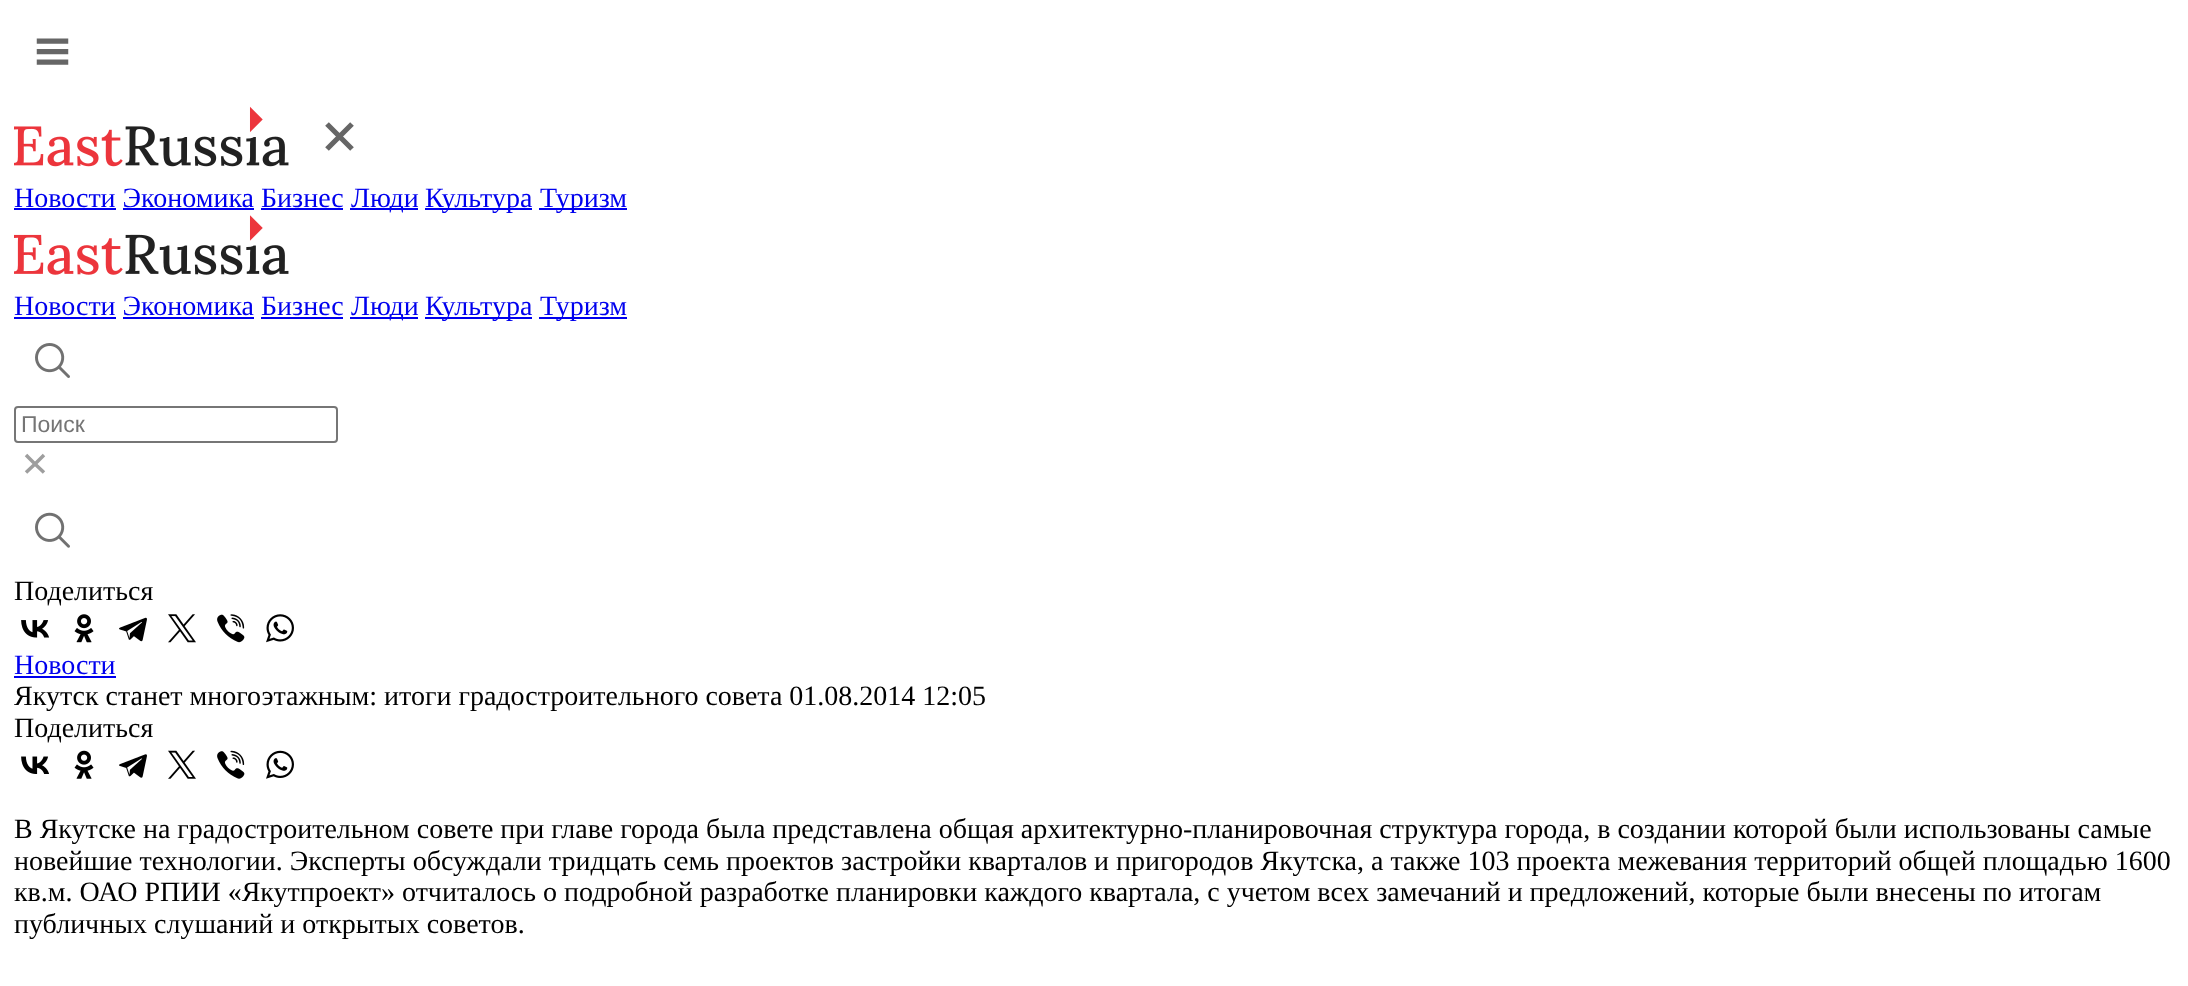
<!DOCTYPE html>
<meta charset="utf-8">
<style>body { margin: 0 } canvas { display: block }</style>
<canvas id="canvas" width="2188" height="986"></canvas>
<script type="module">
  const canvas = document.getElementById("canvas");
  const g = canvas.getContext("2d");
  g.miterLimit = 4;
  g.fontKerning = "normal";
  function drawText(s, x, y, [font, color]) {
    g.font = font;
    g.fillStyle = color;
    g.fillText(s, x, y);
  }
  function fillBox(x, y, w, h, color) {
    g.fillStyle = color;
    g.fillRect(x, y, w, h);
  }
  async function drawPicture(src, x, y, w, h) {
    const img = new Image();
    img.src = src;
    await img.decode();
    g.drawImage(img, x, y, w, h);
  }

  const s1 = ["28px Liberation Serif", "#0000EE"];
  const s2 = ["23px Liberation Sans", "#757575"];
  const s3 = ["28px Liberation Serif", "#000000"];

  fillBox(0, 0, 2188, 986, "#FFFFFF");
  await drawPicture("pic1.png", 36, 38, 33, 27);
  await drawPicture("pic2.png", 14, 106, 275, 61);
  g.beginPath();
  g.moveTo(327, 124);
  g.lineTo(339.5, 136.5);
  g.moveTo(352, 149);
  g.lineTo(339.5, 136.5);
  g.moveTo(339.5, 136.5);
  g.lineTo(352, 124);
  g.moveTo(339.5, 136.5);
  g.lineTo(327, 149);
  g.strokeStyle = "#666666";
  g.lineWidth = 5.2;
  g.stroke();
  drawText("Новости Экономика Бизнес", 14, 207, s1);
  fillBox(14, 208, 102, 2, "#0000EE");
  fillBox(350, 208, 68, 2, "#0000EE");
  drawText("Люди", 351, 207, s1);
  fillBox(425, 208, 107, 2, "#0000EE");
  drawText("Культура", 425, 207, s1);
  fillBox(539, 208, 88, 2, "#0000EE");
  drawText("Туризм", 540, 207, s1);
  fillBox(123, 208, 131, 2, "#0000EE");
  fillBox(261, 208, 82, 2, "#0000EE");
  await drawPicture("pic3.png", 14, 215, 275, 60);
  drawText("Новости Экономика Бизнес", 14, 315, s1);
  fillBox(14, 317, 102, 2, "#0000EE");
  fillBox(350, 317, 68, 2, "#0000EE");
  drawText("Люди", 351, 315, s1);
  fillBox(425, 317, 107, 2, "#0000EE");
  drawText("Культура", 425, 315, s1);
  fillBox(539, 317, 88, 2, "#0000EE");
  drawText("Туризм", 540, 315, s1);
  fillBox(123, 317, 131, 2, "#0000EE");
  fillBox(261, 317, 82, 2, "#0000EE");
  await drawPicture("pic4.png", 35, 343, 35, 35);
  g.beginPath();
  g.roundRect(15, 407, 322, 35, 3);
  g.strokeStyle = "#767676";
  g.lineWidth = 2;
  g.stroke();
  drawText("Поиск", 21, 432, s2);
  g.beginPath();
  g.moveTo(26, 455);
  g.lineTo(35, 464);
  g.moveTo(44, 472.5);
  g.lineTo(35, 464);
  g.moveTo(35, 464);
  g.lineTo(44, 455);
  g.moveTo(35, 464);
  g.lineTo(26, 472.5);
  g.strokeStyle = "#9E9E9E";
  g.lineWidth = 3.5;
  g.stroke();
  await drawPicture("pic5.png", 35, 512, 35, 36);
  drawText("Поделиться", 14, 600, s3);
  await drawPicture("pic6.png", 21, 620, 29, 18);
  await drawPicture("pic7.png", 74, 614, 20, 29);
  await drawPicture("pic8.png", 119, 617, 28, 25);
  await drawPicture("pic9.png", 168, 614, 28, 29);
  await drawPicture("pic10.png", 217, 614, 28, 29);
  await drawPicture("pic11.png", 266, 614, 28, 29);
  drawText("Новости", 14, 674, s1);
  fillBox(14, 676, 102, 2, "#0000EE");
  drawText("Якутск станет многоэтажным: итоги градостроительного совета 01.08.2014 12:05", 14, 705, s3);
  drawText("Поделиться", 14, 737, s3);
  await drawPicture("pic12.png", 21, 756, 28, 18);
  await drawPicture("pic13.png", 74, 750, 20, 29);
  await drawPicture("pic14.png", 119, 754, 28, 24);
  await drawPicture("pic15.png", 168, 750, 28, 29);
  await drawPicture("pic16.png", 217, 750, 28, 29);
  await drawPicture("pic17.png", 266, 750, 28, 29);
  drawText("В Якутске на градостроительном совете при главе города была представлена общая архитектурно-планировочная структура города, в создании которой были использованы самые", 14, 838, s3);
  drawText("новейшие технологии. Эксперты обсуждали тридцать семь проектов застройки кварталов и пригородов Якутска, а также 103 проекта межевания территорий общей площадью 1600", 14, 870, s3);
  drawText("кв.м. ОАО РПИИ «Якутпроект» отчиталось о подробной разработке планировки каждого квартала, с учетом всех замечаний и предложений, которые были внесены по итогам", 14, 901, s3);
  drawText("публичных слушаний и открытых советов.", 14, 933, s3);
</script>
